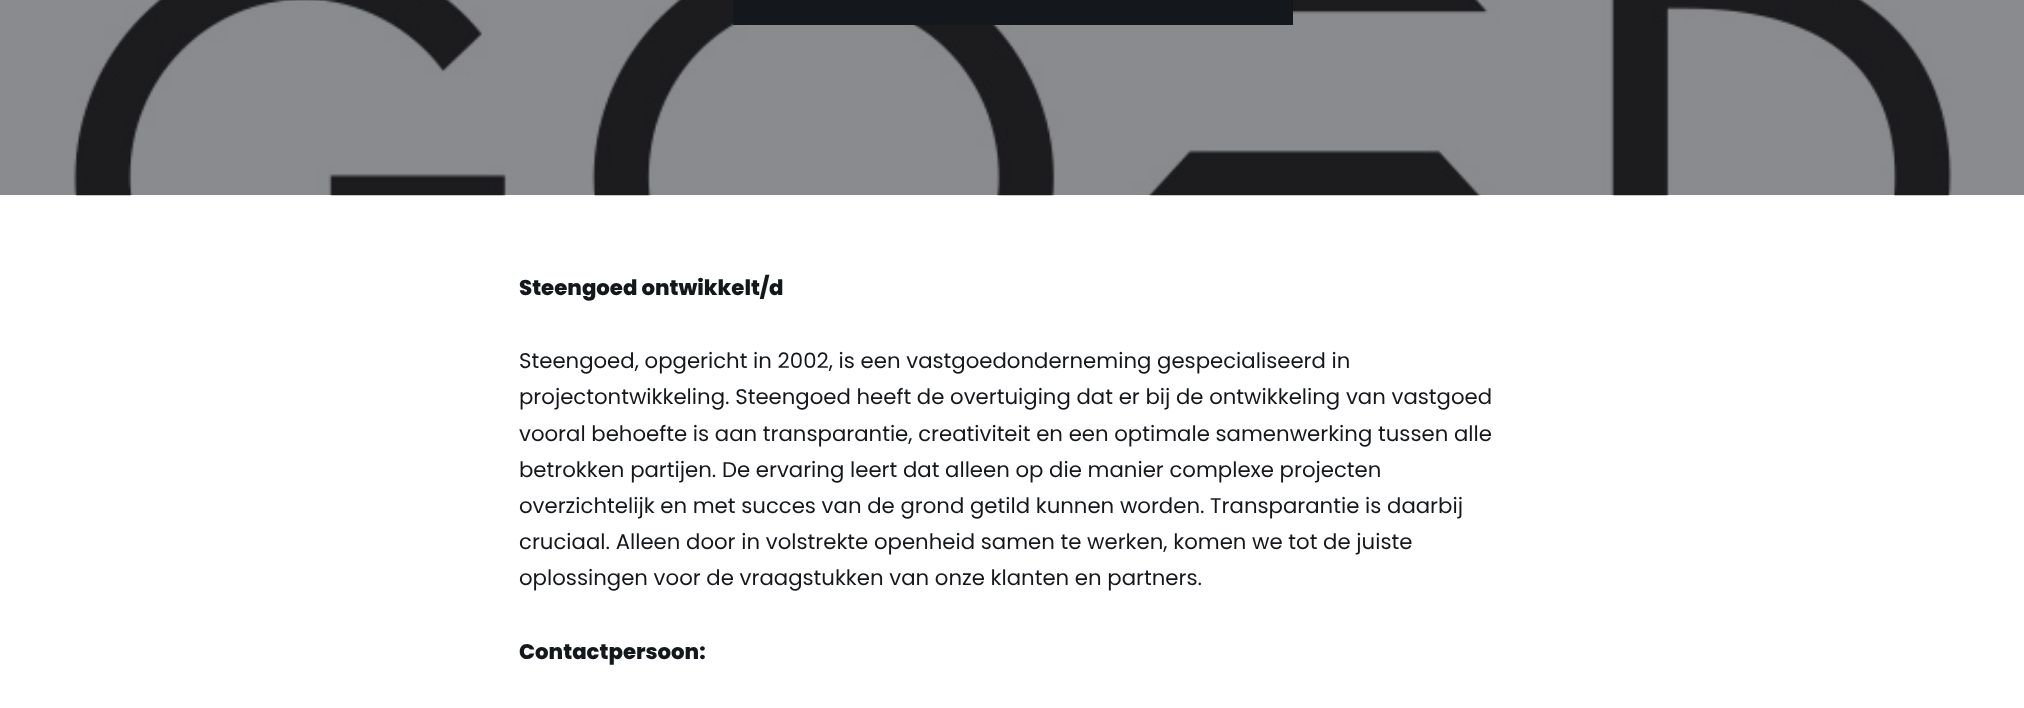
<!DOCTYPE html>
<meta charset="utf-8">
<style>body { margin: 0 } canvas { display: block }</style>
<canvas id="canvas" width="2024" height="708"></canvas>
<script type="module">
  const canvas = document.getElementById("canvas");
  const g = canvas.getContext("2d");
  g.miterLimit = 4;
  g.fontKerning = "normal";
  function drawText(s, x, y, [font, color]) {
    g.font = font;
    g.fillStyle = color;
    g.fillText(s, x, y);
  }
  function fillBox(x, y, w, h, color) {
    g.fillStyle = color;
    g.fillRect(x, y, w, h);
  }
  async function drawPicture(src, x, y, w, h) {
    const img = new Image();
    img.src = src;
    await img.decode();
    g.drawImage(img, x, y, w, h);
  }

  const s1 = ["800 21.25px Poppins", "#14171C"];
  const s2 = ["21.25px Poppins", "#14171C"];

  fillBox(0, 0, 2024, 708, "#FFFFFF");
  fillBox(0, 0, 2024, 195, "#8A8B8E");
  await drawPicture("pic1.png", 73, 0, 1879, 196);
  fillBox(733, 0, 560, 25, "#14171C");
  drawText("Steengoed ontwikkelt/d", 519, 295, s1);
  drawText("Steengoed, opgericht in 2002, is een vastgoedonderneming gespecialiseerd in", 519, 368, s2);
  drawText("projectontwikkeling. Steengoed heeft de overtuiging dat er bij de ontwikkeling van vastgoed", 519, 404, s2);
  drawText("vooral behoefte is aan transparantie, creativiteit en een optimale samenwerking tussen alle", 519, 441, s2);
  drawText("betrokken partijen. De ervaring leert dat alleen op die manier complexe projecten", 519, 477, s2);
  drawText("overzichtelijk en met succes van de grond getild kunnen worden. Transparantie is daarbij", 519, 513, s2);
  drawText("cruciaal. Alleen door in volstrekte openheid samen te werken, komen we tot de juiste", 519, 549, s2);
  drawText("oplossingen voor de vraagstukken van onze klanten en partners.", 519, 585, s2);
  drawText("Contactpersoon:", 519, 659, s1);
</script>
